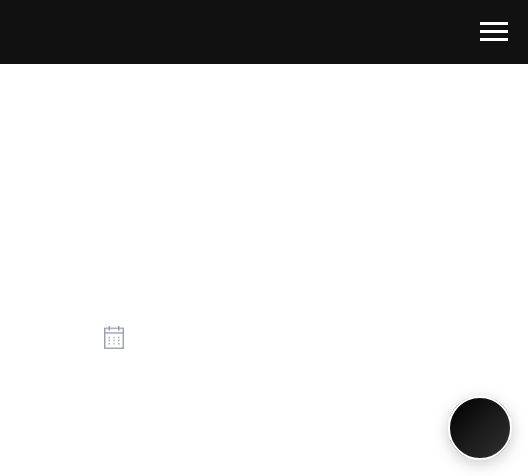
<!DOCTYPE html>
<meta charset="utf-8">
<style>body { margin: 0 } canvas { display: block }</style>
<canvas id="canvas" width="528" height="476"></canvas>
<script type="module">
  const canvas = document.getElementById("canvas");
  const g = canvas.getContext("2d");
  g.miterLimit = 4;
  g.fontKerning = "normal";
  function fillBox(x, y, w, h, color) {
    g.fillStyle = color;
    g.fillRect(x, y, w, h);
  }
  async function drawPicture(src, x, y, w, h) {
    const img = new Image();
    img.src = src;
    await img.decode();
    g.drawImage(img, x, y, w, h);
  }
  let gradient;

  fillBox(0, 0, 528, 476, "#FFFFFF");
  fillBox(0, 0, 528, 64, "#111111");
  fillBox(480, 22, 28, 3, "#FFFFFF");
  fillBox(480, 30, 28, 3, "#FFFFFF");
  fillBox(480, 38, 28, 3, "#FFFFFF");
  await drawPicture("pic1.png", 104, 326, 20, 23);
  g.fillStyle = "rgba(0, 0, 0, 0.2)";
  g.filter = "blur(7.5px)";
  g.beginPath();
  g.roundRect(448, 400, 64, 64, 32);
  g.fill();
  g.filter = "none";
  g.save();
  g.beginPath();
  g.roundRect(448, 396, 64, 64, 32);
  g.clip();
  gradient = g.createLinearGradient(450, 398, 510, 458);
  gradient.addColorStop(0, "#000000");
  gradient.addColorStop(1, "#333333");
  g.fillStyle = gradient;
  g.fillRect(450, 398, 60, 60);
  g.restore();
  g.beginPath();
  g.arc(480, 428, 31, 0, Math.PI * 2);
  g.strokeStyle = "#FFFFFF";
  g.lineWidth = 2;
  g.stroke();
</script>
